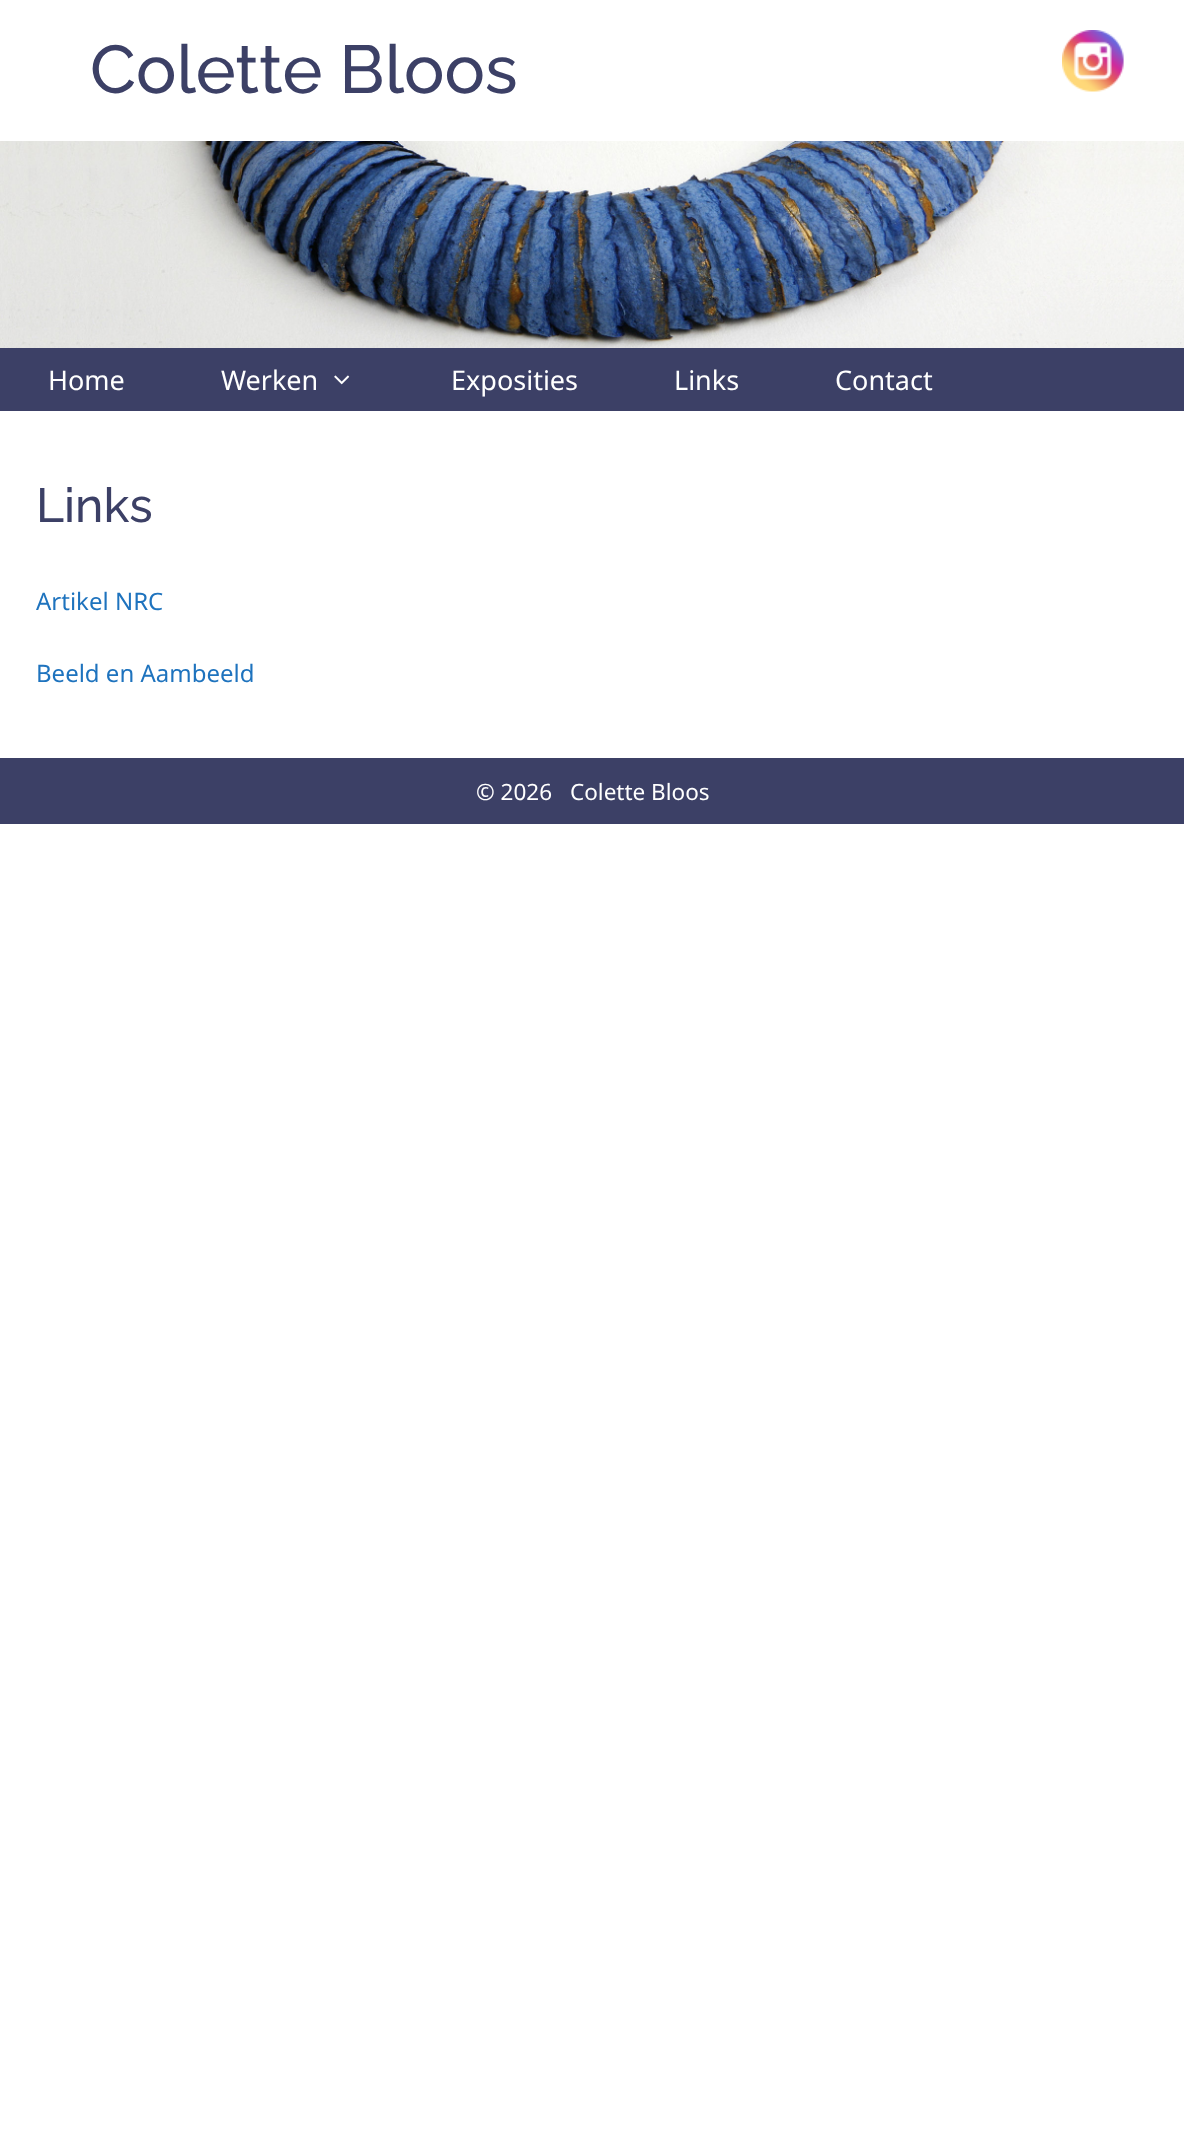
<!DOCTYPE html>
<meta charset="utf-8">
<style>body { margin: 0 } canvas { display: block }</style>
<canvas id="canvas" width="1184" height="2130"></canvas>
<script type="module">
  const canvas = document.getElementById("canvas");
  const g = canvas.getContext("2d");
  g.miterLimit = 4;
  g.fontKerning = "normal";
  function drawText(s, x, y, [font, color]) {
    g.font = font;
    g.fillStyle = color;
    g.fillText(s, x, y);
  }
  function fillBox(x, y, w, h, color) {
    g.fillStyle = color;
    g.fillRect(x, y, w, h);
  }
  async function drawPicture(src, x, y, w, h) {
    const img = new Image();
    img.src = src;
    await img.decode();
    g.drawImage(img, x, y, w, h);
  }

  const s1 = ["500 67.5px Raleway", "#3C4066"];
  const s2 = ["27px Noto Sans", "#FFFFFF"];
  const s3 = ["500 48px Raleway", "#3C4066"];
  const s4 = ["24px Noto Sans", "#1E73BE"];
  const s5 = ["22.5px Noto Sans", "#FFFFFF"];

  fillBox(0, 0, 1184, 2130, "#FFFFFF");
  drawText("Colette Bloos", 90, 93, s1);
  await drawPicture("pic1.png", 1062, 30, 62, 62);
  await drawPicture("pic2.png", 0, 141, 1184, 207);
  fillBox(0, 348, 1184, 63, "#3C4066");
  drawText("Home", 48, 390, s2);
  drawText("Werken", 221, 390, s2);
  await drawPicture("pic3.png", 334, 375, 16, 10);
  drawText("Exposities", 451, 390, s2);
  drawText("Links", 674, 390, s2);
  drawText("Contact", 835, 390, s2);
  drawText("Links", 36, 522, s3);
  drawText("Artikel NRC", 36, 610, s4);
  drawText("Beeld en Aambeeld", 36, 682, s4);
  fillBox(0, 758, 1184, 66, "#3C4066");
  drawText("© 2026", 476, 800, s5);
  drawText("Colette Bloos", 570, 800, s5);
</script>
